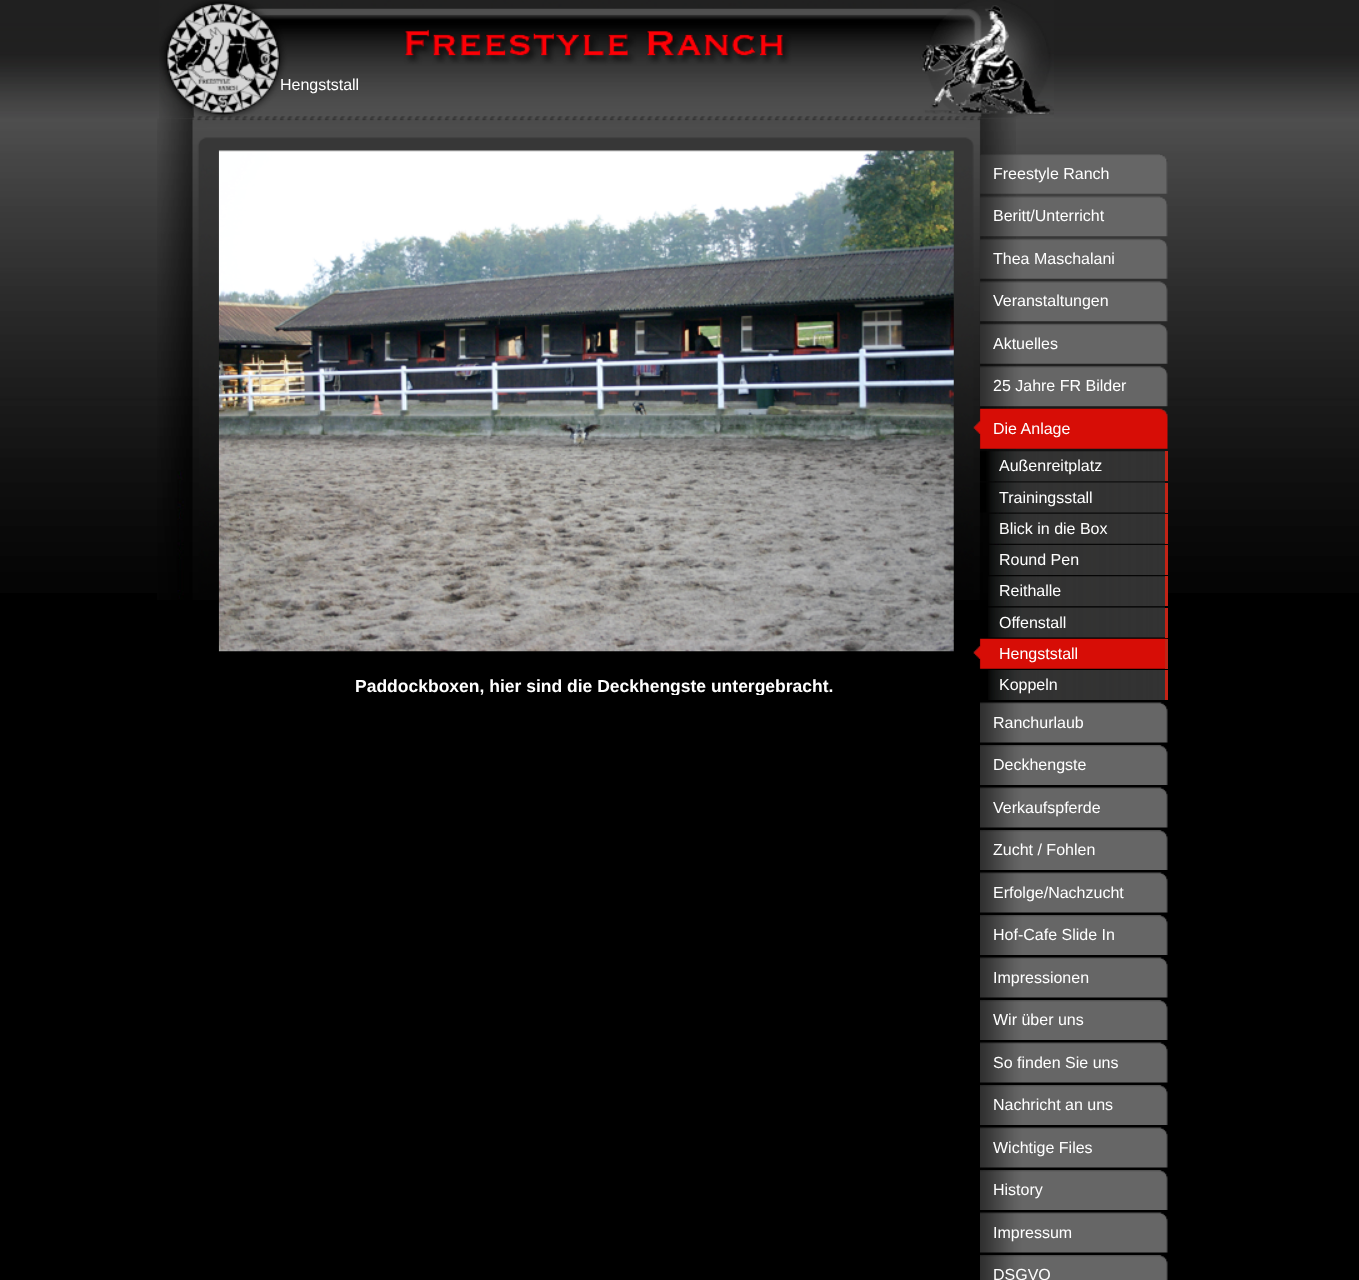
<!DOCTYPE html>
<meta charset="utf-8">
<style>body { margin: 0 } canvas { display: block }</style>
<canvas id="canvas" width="1359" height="1280"></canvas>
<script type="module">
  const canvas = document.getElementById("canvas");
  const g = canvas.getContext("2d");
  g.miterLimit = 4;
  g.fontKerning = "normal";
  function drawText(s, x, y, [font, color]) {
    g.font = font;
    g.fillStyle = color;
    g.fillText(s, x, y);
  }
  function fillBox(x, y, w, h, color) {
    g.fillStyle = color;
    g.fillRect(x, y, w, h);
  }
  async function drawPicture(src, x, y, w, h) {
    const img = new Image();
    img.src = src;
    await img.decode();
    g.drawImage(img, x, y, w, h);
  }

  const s1 = ["16px Liberation Sans", "#FFFFFF"];
  const s2 = ["bold 17.5px Liberation Sans", "#FFFFFF"];

  fillBox(0, 0, 1359, 1280, "#000000");
  await drawPicture("pic1.png", 0, 0, 1359, 593);
  await drawPicture("pic2.png", 157, 118, 859, 482);
  await drawPicture("pic3.png", 159, 0, 895, 119);
  drawText("Hengststall", 280, 90, s1);
  await drawPicture("pic4.png", 218, 150, 736, 502);
  g.save();
  g.beginPath();
  g.rect(223, 653, 731, 42);
  g.clip();
  drawText("Paddockboxen, hier sind die Deckhengste untergebracht.", 355, 692, s2);
  g.restore();
  await drawPicture("pic5.png", 980, 154, 188, 40);
  drawText("Freestyle Ranch", 993, 179, s1);
  await drawPicture("pic6.png", 980, 196, 188, 41);
  drawText("Beritt/Unterricht", 993, 221, s1);
  await drawPicture("pic7.png", 980, 238, 188, 41);
  drawText("Thea Maschalani", 993, 264, s1);
  await drawPicture("pic8.png", 980, 281, 188, 41);
  drawText("Veranstaltungen", 993, 306, s1);
  await drawPicture("pic9.png", 980, 323, 188, 41);
  drawText("Aktuelles", 993, 349, s1);
  await drawPicture("pic10.png", 980, 366, 188, 41);
  drawText("25 Jahre FR Bilder", 993, 391, s1);
  await drawPicture("pic11.png", 973, 408, 195, 41);
  drawText("Die Anlage", 993, 434, s1);
  await drawPicture("pic12.png", 980, 451, 185, 31);
  fillBox(1165, 451, 3, 30, "#C22316");
  drawText("Außenreitplatz", 999, 471, s1);
  await drawPicture("pic13.png", 980, 482, 185, 31);
  fillBox(1165, 483, 3, 30, "#C22316");
  drawText("Trainingsstall", 999, 503, s1);
  await drawPicture("pic14.png", 989, 513, 176, 31);
  fillBox(1165, 514, 3, 30, "#C22316");
  drawText("Blick in die Box", 999, 534, s1);
  await drawPicture("pic15.png", 989, 545, 176, 30);
  fillBox(1165, 545, 3, 30, "#C22316");
  drawText("Round Pen", 999, 565, s1);
  await drawPicture("pic16.png", 988, 576, 177, 31);
  fillBox(1165, 576, 3, 30, "#C22316");
  drawText("Reithalle", 999, 596, s1);
  await drawPicture("pic17.png", 988, 607, 177, 31);
  fillBox(1165, 608, 3, 30, "#C22316");
  drawText("Offenstall", 999, 628, s1);
  await drawPicture("pic18.png", 973, 638, 195, 31);
  fillBox(1165, 639, 3, 30, "#C22316");
  drawText("Hengststall", 999, 659, s1);
  await drawPicture("pic19.png", 988, 670, 177, 30);
  fillBox(1165, 670, 3, 30, "#C22316");
  drawText("Koppeln", 999, 690, s1);
  await drawPicture("pic20.png", 980, 702, 188, 41);
  drawText("Ranchurlaub", 993, 728, s1);
  await drawPicture("pic21.png", 980, 745, 188, 40);
  drawText("Deckhengste", 993, 770, s1);
  await drawPicture("pic20.png", 980, 787, 188, 41);
  drawText("Verkaufspferde", 993, 813, s1);
  await drawPicture("pic21.png", 980, 830, 188, 40);
  drawText("Zucht / Fohlen", 993, 855, s1);
  await drawPicture("pic20.png", 980, 872, 188, 41);
  drawText("Erfolge/Nachzucht", 993, 898, s1);
  await drawPicture("pic21.png", 980, 915, 188, 40);
  drawText("Hof-Cafe Slide In", 993, 940, s1);
  await drawPicture("pic20.png", 980, 957, 188, 41);
  drawText("Impressionen", 993, 983, s1);
  await drawPicture("pic21.png", 980, 1000, 188, 40);
  drawText("Wir über uns", 993, 1025, s1);
  await drawPicture("pic20.png", 980, 1042, 188, 41);
  drawText("So finden Sie uns", 993, 1068, s1);
  await drawPicture("pic21.png", 980, 1085, 188, 40);
  drawText("Nachricht an uns", 993, 1110, s1);
  await drawPicture("pic20.png", 980, 1127, 188, 41);
  drawText("Wichtige Files", 993, 1153, s1);
  await drawPicture("pic22.png", 980, 1170, 188, 40);
  drawText("History", 993, 1195, s1);
  await drawPicture("pic20.png", 980, 1212, 188, 41);
  drawText("Impressum", 993, 1238, s1);
  await drawPicture("pic23.png", 980, 1255, 188, 25);
  drawText("DSGVO", 993, 1280, s1);
</script>
